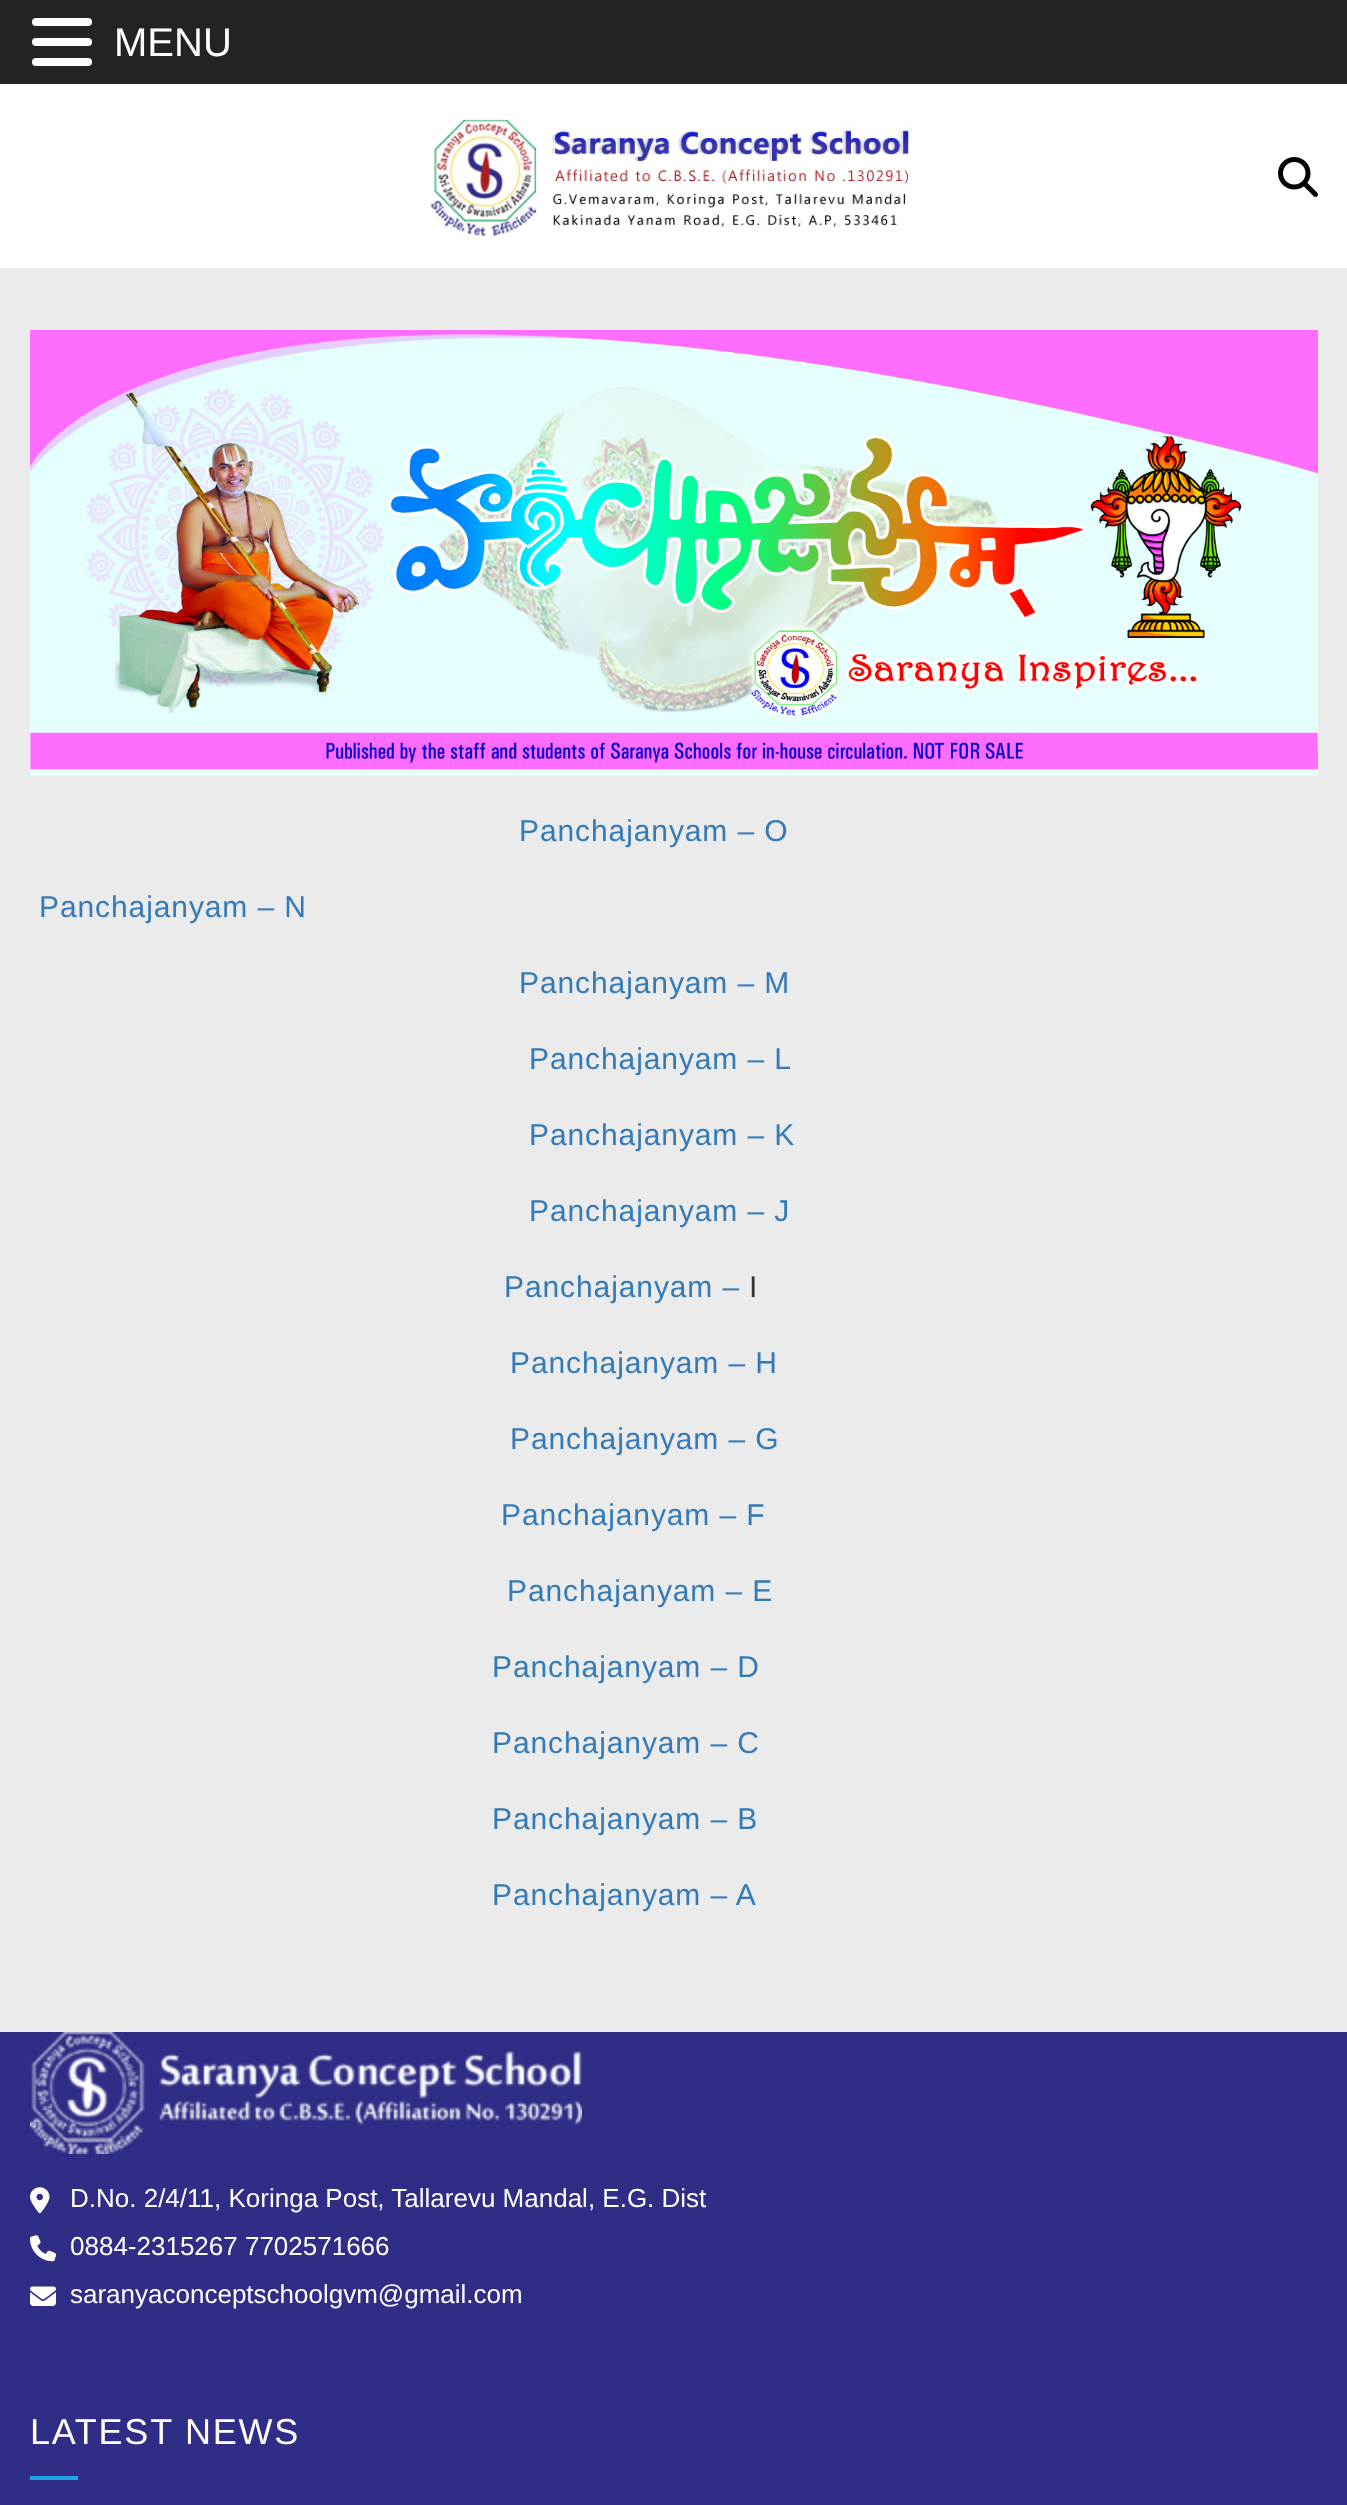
<!DOCTYPE html>
<meta charset="utf-8">
<style>body { margin: 0 } canvas { display: block }</style>
<canvas id="canvas" width="1347" height="2505"></canvas>
<script type="module">
  const canvas = document.getElementById("canvas");
  const g = canvas.getContext("2d");
  g.miterLimit = 4;
  g.fontKerning = "normal";
  function drawText(s, x, y, [font, color]) {
    g.font = font;
    g.fillStyle = color;
    g.fillText(s, x, y);
  }
  function fillBox(x, y, w, h, color) {
    g.fillStyle = color;
    g.fillRect(x, y, w, h);
  }
  function fillRounded(x, y, w, h, r, color) {
    g.fillStyle = color;
    g.beginPath();
    g.roundRect(x, y, w, h, r);
    g.fill();
  }
  async function drawPicture(src, x, y, w, h) {
    const img = new Image();
    img.src = src;
    await img.decode();
    g.drawImage(img, x, y, w, h);
  }

  const s1 = ["40px Liberation Sans", "#FFFFFF"];
  const s2 = ["30px Liberation Sans", "#337AB7"];
  const s3 = ["30px Liberation Sans", "#333333"];
  const s4 = ["26px Liberation Sans", "#FFFFFF"];
  const s5 = ["36px Liberation Sans", "#FFFFFF"];

  fillBox(0, 0, 1347, 2505, "#EBEBEB");
  fillBox(0, 0, 1347, 84, "#232323");
  fillRounded(32, 18, 60, 8, 4, "#FFFFFF");
  fillRounded(32, 38, 60, 8, 4, "#FFFFFF");
  fillRounded(32, 58, 60, 8, 4, "#FFFFFF");
  drawText("MENU", 114, 56, s1);
  fillBox(0, 84, 1347, 184, "#FFFFFF");
  await drawPicture("pic1.png", 430, 119, 479, 118);
  await drawPicture("pic2.png", 1278, 157, 40, 40);
  await drawPicture("pic3.png", 30, 330, 1288, 446);
  g.letterSpacing = "0.9px";
  drawText("Panchajanyam – O", 519, 841, s2);
  drawText("Panchajanyam – N", 39, 917, s2);
  drawText("Panchajanyam – M", 519, 993, s2);
  drawText("Panchajanyam – L", 529, 1069, s2);
  drawText("Panchajanyam – K", 529, 1145, s2);
  drawText("Panchajanyam – J", 529, 1221, s2);
  drawText("Panchajanyam –", 504, 1297, s2);
  drawText("I", 749, 1297, s3);
  drawText("Panchajanyam – H", 510, 1373, s2);
  drawText("Panchajanyam – G", 510, 1449, s2);
  drawText("Panchajanyam – F", 501, 1525, s2);
  drawText("Panchajanyam – E", 507, 1601, s2);
  drawText("Panchajanyam – D", 492, 1677, s2);
  drawText("Panchajanyam – C", 492, 1753, s2);
  drawText("Panchajanyam – B", 492, 1829, s2);
  drawText("Panchajanyam – A", 492, 1905, s2);
  fillBox(0, 2032, 1347, 473, "#302D86");
  await drawPicture("pic4.png", 30, 2032, 552, 122);
  await drawPicture("pic5.png", 30, 2187, 20, 27);
  g.letterSpacing = "0px";
  drawText("D.No. 2/4/11, Koringa Post, Tallarevu Mandal, E.G. Dist", 70, 2207, s4);
  await drawPicture("pic6.png", 30, 2235, 26, 27);
  drawText("0884-2315267 7702571666", 70, 2255, s4);
  await drawPicture("pic7.png", 30, 2286, 26, 20);
  drawText("saranyaconceptschoolgvm@gmail.com", 70, 2303, s4);
  g.letterSpacing = "1.75px";
  drawText("LATEST NEWS", 30, 2444, s5);
  fillBox(30, 2476, 48, 4, "#21A0E3");
</script>
